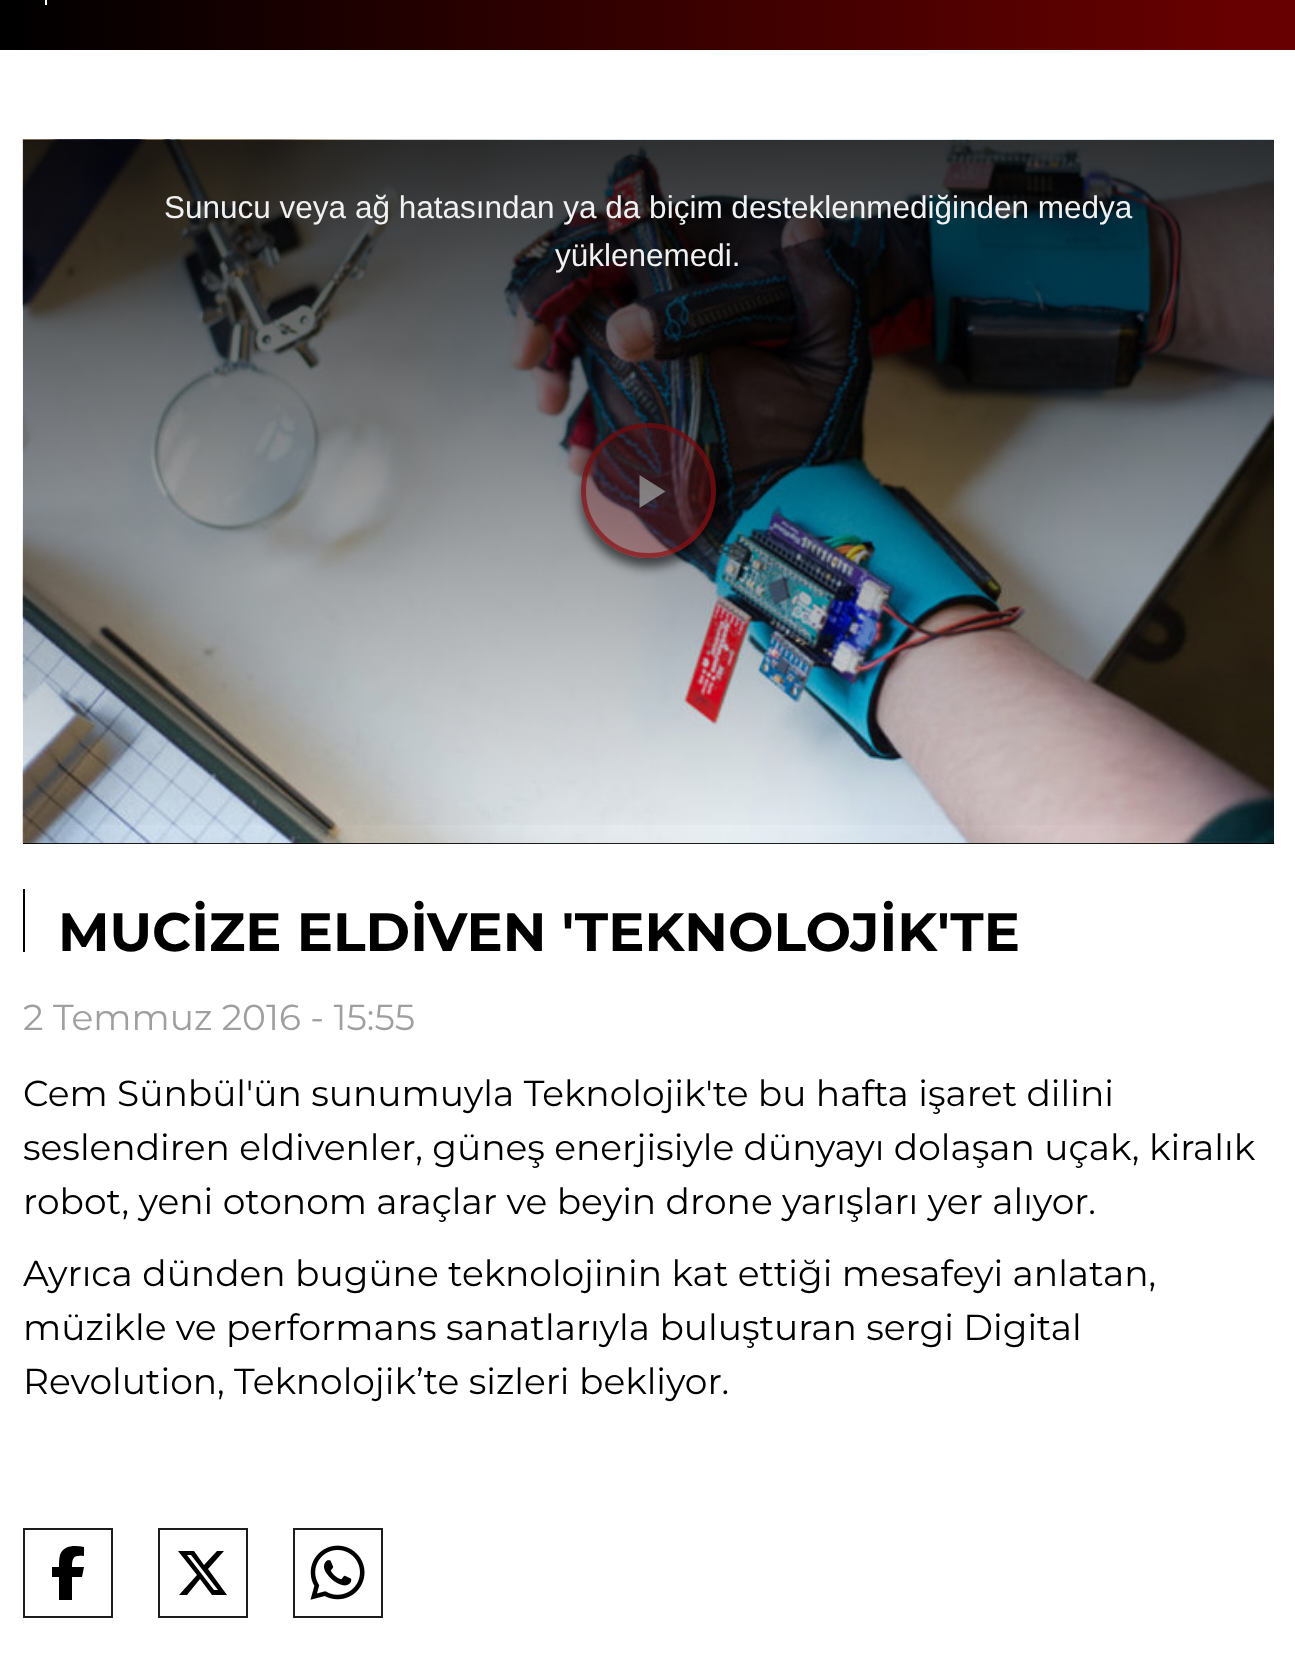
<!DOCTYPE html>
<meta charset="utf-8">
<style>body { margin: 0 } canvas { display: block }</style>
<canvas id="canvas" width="1295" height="1674"></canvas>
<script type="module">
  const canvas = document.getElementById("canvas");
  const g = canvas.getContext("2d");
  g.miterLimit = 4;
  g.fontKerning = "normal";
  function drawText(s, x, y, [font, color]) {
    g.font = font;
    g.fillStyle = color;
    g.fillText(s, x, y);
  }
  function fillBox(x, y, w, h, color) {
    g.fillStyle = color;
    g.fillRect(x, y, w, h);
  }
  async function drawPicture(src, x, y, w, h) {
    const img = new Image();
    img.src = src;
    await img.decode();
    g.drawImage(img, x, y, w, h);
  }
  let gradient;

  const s1 = ["31.5px Liberation Sans", "#F1F1F1"];
  const s2 = ["bold 54px Montserrat", "#000000"];
  const s3 = ["36px Montserrat", "#9F9F9F"];
  const s4 = ["36px Montserrat", "#000000"];

  fillBox(0, 0, 1295, 1674, "#FFFFFF");
  gradient = g.createLinearGradient(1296, -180, 0, -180);
  gradient.addColorStop(0.05, "#670000");
  gradient.addColorStop(1, "#000000");
  g.fillStyle = gradient;
  g.fillRect(0, 0, 1295, 50);
  fillBox(45, 0, 2, 5, "#FFFFFF");
  fillBox(23, 843, 1251, 1, "#000000");
  await drawPicture("pic2.png", 23, 139, 1251, 705);
  await drawPicture("pic1.png", 22, 139, 1251, 705);
  g.save();
  g.beginPath();
  g.moveTo(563, 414);
  g.lineTo(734, 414);
  g.lineTo(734, 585);
  g.lineTo(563, 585);
  g.closePath();
  g.moveTo(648.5, 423);
  g.bezierCurveTo(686, 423, 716, 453, 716, 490.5);
  g.bezierCurveTo(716, 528, 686, 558, 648.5, 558);
  g.bezierCurveTo(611, 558, 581, 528, 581, 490.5);
  g.bezierCurveTo(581, 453, 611, 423, 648.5, 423);
  g.closePath();
  g.clip("evenodd");
  g.fillStyle = "rgba(0, 0, 0, 0.6)";
  g.filter = "blur(5.5px)";
  g.beginPath();
  g.roundRect(581, 432, 135, 135, 67.5);
  g.fill();
  g.filter = "none";
  g.restore();
  g.fillStyle = "rgba(207, 22, 28, 0.3)";
  g.beginPath();
  g.arc(648.5, 490.5, 67.5, 0, Math.PI * 2);
  g.fill();
  g.beginPath();
  g.arc(648.5, 490.5, 65, 0, Math.PI * 2);
  g.strokeStyle = "rgba(207, 22, 28, 0.7)";
  g.lineWidth = 5;
  g.stroke();
  g.fillStyle = "rgba(241, 241, 241, 0.85)";
  g.beginPath();
  g.moveTo(639.5, 475);
  g.lineTo(639.5, 508);
  g.lineTo(665.5, 491.5);
  g.closePath();
  g.fill();
  gradient = g.createLinearGradient(648, 139, 648, 844);
  gradient.addColorStop(0, "rgba(0, 0, 0, 0.8)");
  gradient.addColorStop(1, "rgba(0, 0, 0, 0)");
  g.fillStyle = gradient;
  g.fillRect(23, 140, 1251, 685);
  drawText("Sunucu veya ağ hatasından ya da biçim desteklenmediğinden medya", 164, 218, s1);
  drawText("yüklenemedi.", 555, 266, s1);
  fillBox(23, 889, 2, 63, "#000000");
  drawText("MUCİZE ELDİVEN 'TEKNOLOJİK'TE", 58, 951, s2);
  drawText("2 Temmuz 2016 - 15:55", 23, 1030, s3);
  drawText("Cem Sünbül'ün sunumuyla Teknolojik'te bu hafta işaret dilini", 23, 1106, s4);
  drawText("seslendiren eldivenler, güneş enerjisiyle dünyayı dolaşan uçak, kiralık", 23, 1160, s4);
  drawText("robot, yeni otonom araçlar ve beyin drone yarışları yer alıyor.", 23, 1214, s4);
  drawText("Ayrıca dünden bugüne teknolojinin kat ettiği mesafeyi anlatan,", 23, 1286, s4);
  drawText("müzikle ve performans sanatlarıyla buluşturan sergi Digital", 23, 1340, s4);
  drawText("Revolution, Teknolojik’te sizleri bekliyor.", 23, 1394, s4);
  g.strokeStyle = "#1D1D1D";
  g.lineWidth = 2;
  g.strokeRect(24, 1529, 88, 88);
  g.beginPath();
  g.moveTo(59, 1577);
  g.lineTo(59, 1600);
  g.lineTo(72, 1600);
  g.lineTo(72, 1577);
  g.lineTo(82, 1577);
  g.lineTo(84, 1567);
  g.lineTo(72, 1567);
  g.bezierCurveTo(72, 1557, 74, 1555, 84, 1556);
  g.lineTo(84, 1547);
  g.bezierCurveTo(75, 1545, 63, 1545, 60, 1555);
  g.bezierCurveTo(59, 1559, 59, 1563, 59, 1567);
  g.lineTo(52, 1567);
  g.lineTo(52, 1577);
  g.closePath();
  g.fill();
  g.strokeRect(159, 1529, 88, 88);
  g.beginPath();
  g.moveTo(217, 1551);
  g.lineTo(224, 1551);
  g.lineTo(208, 1569);
  g.lineTo(227, 1595);
  g.lineTo(212, 1595);
  g.lineTo(200, 1579);
  g.lineTo(187, 1595);
  g.lineTo(179, 1595);
  g.lineTo(197, 1575);
  g.lineTo(178, 1551);
  g.lineTo(194, 1551);
  g.lineTo(204, 1565);
  g.closePath();
  g.moveTo(214, 1590);
  g.lineTo(218, 1590);
  g.lineTo(191, 1555);
  g.lineTo(187, 1555);
  g.closePath();
  g.fill();
  g.strokeRect(294, 1529, 88, 88);
  await drawPicture("pic3.png", 310, 1545, 55, 55);
</script>
